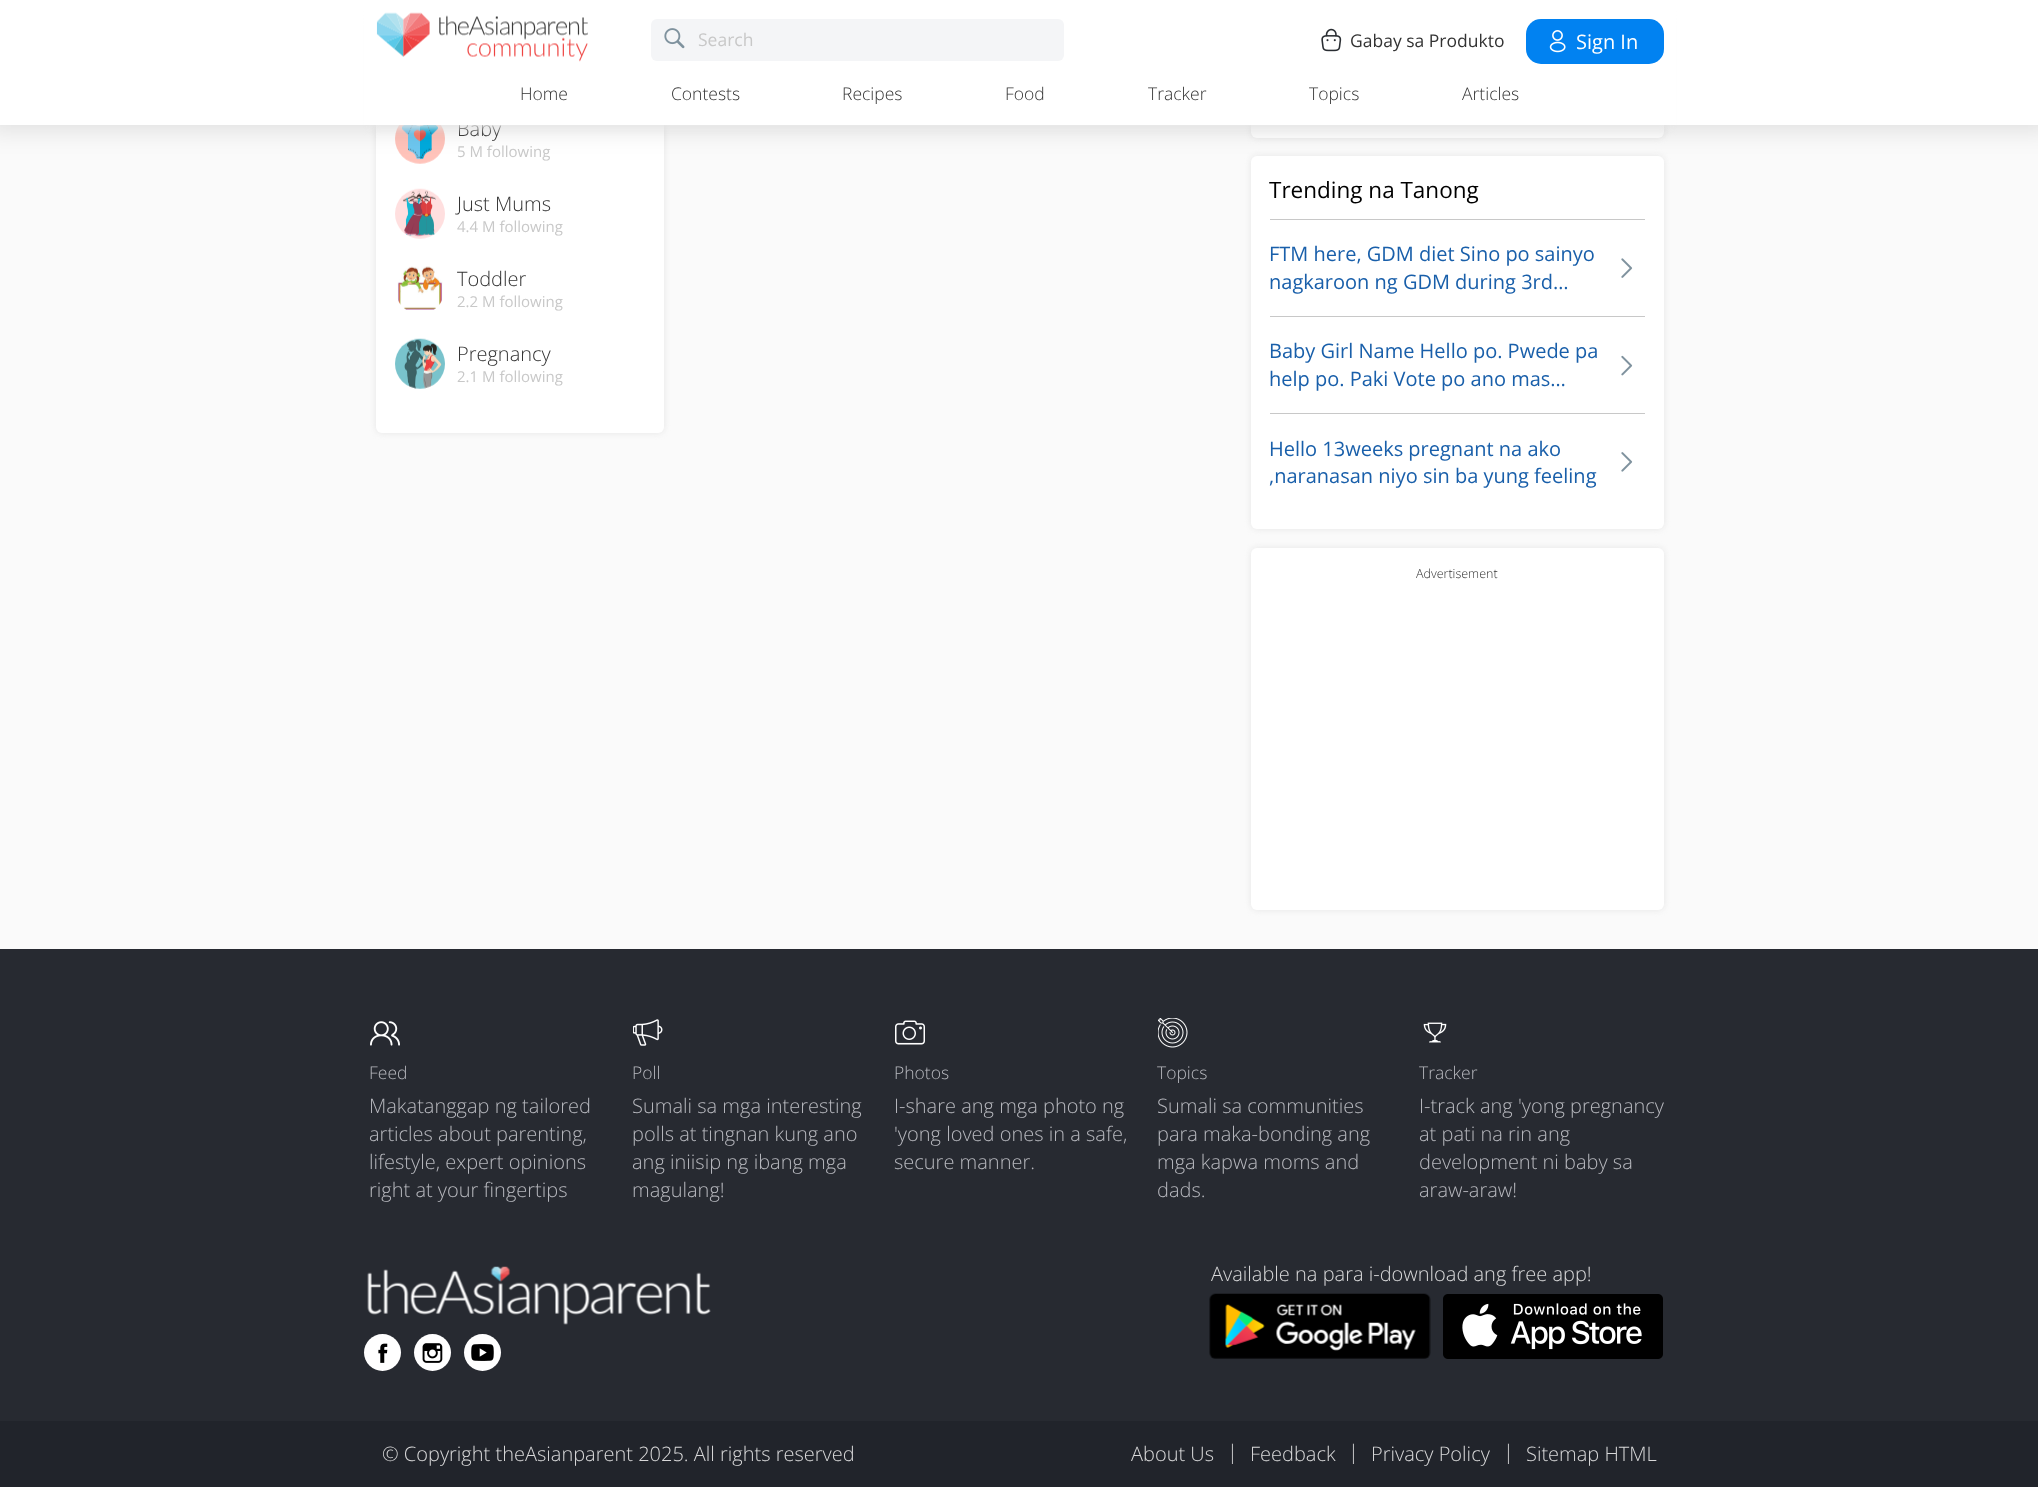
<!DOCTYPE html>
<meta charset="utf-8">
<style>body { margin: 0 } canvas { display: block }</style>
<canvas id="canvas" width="2038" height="1487"></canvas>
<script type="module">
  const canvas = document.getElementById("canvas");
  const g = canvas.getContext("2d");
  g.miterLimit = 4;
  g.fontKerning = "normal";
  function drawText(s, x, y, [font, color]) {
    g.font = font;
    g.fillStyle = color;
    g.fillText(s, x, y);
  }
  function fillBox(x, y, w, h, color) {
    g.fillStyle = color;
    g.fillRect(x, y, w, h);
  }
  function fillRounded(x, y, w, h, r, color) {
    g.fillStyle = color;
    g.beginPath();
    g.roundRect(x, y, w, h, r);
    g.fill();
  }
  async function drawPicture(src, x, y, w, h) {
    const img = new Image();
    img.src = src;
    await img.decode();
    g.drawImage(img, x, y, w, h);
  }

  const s1 = ["300 20px Open Sans", "#333333"];
  const s2 = ["17.5px Open Sans", "#C8C8C8"];
  const s3 = ["17.5px Open Sans", "#333333"];
  const s4 = ["20px Open Sans", "#FFFFFF"];
  const s5 = ["300 17.5px Open Sans", "#333333"];
  const s6 = ["15px Open Sans", "#C8C8C8"];
  const s7 = ["22.5px Open Sans", "#000000"];
  const s8 = ["20px Open Sans", "#195FAA"];
  const s9 = ["300 12.5px Open Sans", "#333333"];
  const s10 = ["300 17.5px Open Sans", "#B7B8BE"];
  const s11 = ["300 20px Open Sans", "#B7B8BE"];
  const s12 = ["300 20px Open Sans", "#D8D8D9"];

  fillBox(0, 0, 2038, 1487, "#FAFAFA");
  g.fillStyle = "#E6E6E6";
  g.filter = "blur(3px)";
  g.beginPath();
  g.roundRect(376, 95, 288, 338, 6);
  g.fill();
  g.filter = "none";
  fillRounded(376, 95, 288, 338, 6, "#FFFFFF");
  await drawPicture("pic5.png", 395, 125, 50, 39);
  g.fillStyle = "#E6E6E6";
  g.filter = "blur(3px)";
  g.beginPath();
  g.roundRect(1251, -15, 413, 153, 6);
  g.fill();
  g.filter = "none";
  fillRounded(1251, -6, 413, 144, 6, "#FFFFFF");
  g.fillStyle = "#E6E6E6";
  g.filter = "blur(3px)";
  g.beginPath();
  g.roundRect(1251, 156, 413, 373, 6);
  g.fill();
  g.filter = "none";
  fillRounded(1251, 156, 413, 373, 6, "#FFFFFF");
  g.fillStyle = "rgba(0, 0, 0, 0.1)";
  g.filter = "blur(12.5px)";
  g.beginPath();
  g.rect(-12, -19, 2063, 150);
  g.fill();
  g.filter = "none";
  drawText("Baby", 457, 136, s1);
  fillBox(0, 0, 2038, 125, "#FFFFFF");
  g.save();
  g.beginPath();
  g.moveTo(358, 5);
  g.lineTo(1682, 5);
  g.lineTo(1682, 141);
  g.lineTo(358, 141);
  g.closePath();
  g.moveTo(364, 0);
  g.lineTo(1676, 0);
  g.lineTo(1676, 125);
  g.lineTo(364, 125);
  g.closePath();
  g.clip("evenodd");
  g.fillStyle = "#E7E7E7";
  g.filter = "blur(4px)";
  g.beginPath();
  g.rect(371, 18, 1298, 110);
  g.fill();
  g.filter = "none";
  g.restore();
  await drawPicture("pic1.png", 376, 12, 212, 50);
  fillRounded(651, 19, 413, 42, 6, "#F4F5F7");
  await drawPicture("pic2.png", 664, 28, 21, 21);
  drawText("Search", 698, 46, s2);
  await drawPicture("pic3.png", 1321, 28, 21, 24);
  drawText("Gabay sa Produkto", 1350, 47, s3);
  fillRounded(1526, 19, 138, 45, 15, "#0182F1");
  await drawPicture("pic4.png", 1549, 30, 17, 23);
  drawText("Sign In", 1576, 49, s4);
  drawText("Home", 520, 100, s5);
  drawText("Contests", 671, 100, s5);
  drawText("Recipes", 842, 100, s5);
  drawText("Food", 1005, 100, s5);
  drawText("Tracker", 1148, 100, s5);
  drawText("Topics", 1309, 100, s5);
  drawText("Articles", 1462, 100, s5);
  drawText("5 M following", 457, 157, s6);
  await drawPicture("pic6.png", 395, 188, 50, 51);
  drawText("Just Mums", 457, 211, s1);
  drawText("4.4 M following", 457, 232, s6);
  await drawPicture("pic7.png", 397, 266, 46, 44);
  drawText("Toddler", 457, 286, s1);
  drawText("2.2 M following", 457, 307, s6);
  await drawPicture("pic8.png", 395, 338, 50, 51);
  drawText("Pregnancy", 457, 361, s1);
  drawText("2.1 M following", 457, 382, s6);
  fillBox(1270, 219, 375, 1, "#C8C8C8");
  drawText("Trending na Tanong", 1269, 198, s7);
  fillBox(1270, 316, 375, 1, "#C8C8C8");
  drawText("FTM here, GDM diet Sino po sainyo", 1269, 261, s8);
  drawText("nagkaroon ng GDM during 3rd…", 1269, 289, s8);
  await drawPicture("pic9.png", 1621, 258, 12, 20);
  fillBox(1270, 413, 375, 1, "#C8C8C8");
  drawText("Baby Girl Name Hello po. Pwede pa", 1269, 358, s8);
  drawText("help po. Paki Vote po ano mas…", 1269, 386, s8);
  await drawPicture("pic10.png", 1621, 355, 12, 21);
  drawText("Hello 13weeks pregnant na ako", 1269, 456, s8);
  drawText(",naranasan niyo sin ba yung feeling", 1269, 483, s8);
  await drawPicture("pic11.png", 1621, 452, 12, 20);
  g.fillStyle = "#E6E6E6";
  g.filter = "blur(3px)";
  g.beginPath();
  g.roundRect(1251, 548, 413, 362, 6);
  g.fill();
  g.filter = "none";
  fillRounded(1251, 548, 413, 362, 6, "#FFFFFF");
  drawText("Advertisement", 1416, 578, s9);
  fillBox(0, 949, 2038, 472, "#272A31");
  await drawPicture("pic12.png", 370, 1021, 30, 25);
  drawText("Feed", 369, 1079, s10);
  drawText("Makatanggap ng tailored", 369, 1113, s11);
  drawText("articles about parenting,", 369, 1141, s11);
  drawText("lifestyle, expert opinions", 369, 1169, s11);
  drawText("right at your fingertips", 369, 1197, s11);
  await drawPicture("pic13.png", 633, 1019, 30, 27);
  drawText("Poll", 632, 1079, s10);
  drawText("Sumali sa mga interesting", 632, 1113, s11);
  drawText("polls at tingnan kung ano", 632, 1141, s11);
  drawText("ang iniisip ng ibang mga", 632, 1169, s11);
  drawText("magulang!", 632, 1197, s11);
  await drawPicture("pic14.png", 895, 1020, 30, 25);
  drawText("Photos", 894, 1079, s10);
  drawText("I-share ang mga photo ng", 894, 1113, s11);
  drawText("'yong loved ones in a safe,", 894, 1141, s11);
  drawText("secure manner.", 894, 1169, s11);
  await drawPicture("pic15.png", 1158, 1018, 30, 30);
  drawText("Topics", 1157, 1079, s10);
  drawText("Sumali sa communities", 1157, 1113, s11);
  drawText("para maka-bonding ang", 1157, 1141, s11);
  drawText("mga kapwa moms and", 1157, 1169, s11);
  drawText("dads.", 1157, 1197, s11);
  await drawPicture("pic16.png", 1423, 1022, 24, 21);
  drawText("Tracker", 1419, 1079, s10);
  drawText("I-track ang 'yong pregnancy", 1419, 1113, s11);
  drawText("at pati na rin ang", 1419, 1141, s11);
  drawText("development ni baby sa", 1419, 1169, s11);
  drawText("araw-araw!", 1419, 1197, s11);
  await drawPicture("pic17.png", 367, 1266, 344, 59);
  g.fillStyle = "#FFFFFF";
  g.beginPath();
  g.arc(382.5, 1352.5, 18.5, 0, Math.PI * 2);
  g.fill();
  await drawPicture("pic18.png", 378, 1343, 10, 20);
  g.beginPath();
  g.arc(432.5, 1352.5, 18.5, 0, Math.PI * 2);
  g.fill();
  await drawPicture("pic19.png", 422, 1343, 21, 20);
  g.beginPath();
  g.arc(482.5, 1352.5, 18.5, 0, Math.PI * 2);
  g.fill();
  await drawPicture("pic20.png", 471, 1344, 23, 17);
  drawText("Available na para i-download ang free app!", 1211, 1281, s12);
  await drawPicture("pic21.png", 1209, 1293, 222, 66);
  await drawPicture("pic22.png", 1443, 1294, 220, 65);
  fillBox(0, 1421, 2038, 66, "#21242B");
  drawText("© Copyright theAsianparent 2025. All rights reserved", 382, 1461, s12);
  drawText("About Us", 1131, 1461, s12);
  drawText("|", 1227, 1459, s12);
  drawText("Feedback", 1250, 1461, s12);
  drawText("|", 1348, 1459, s12);
  drawText("Privacy Policy", 1371, 1461, s12);
  drawText("|", 1503, 1459, s12);
  drawText("Sitemap HTML", 1526, 1461, s12);
</script>
